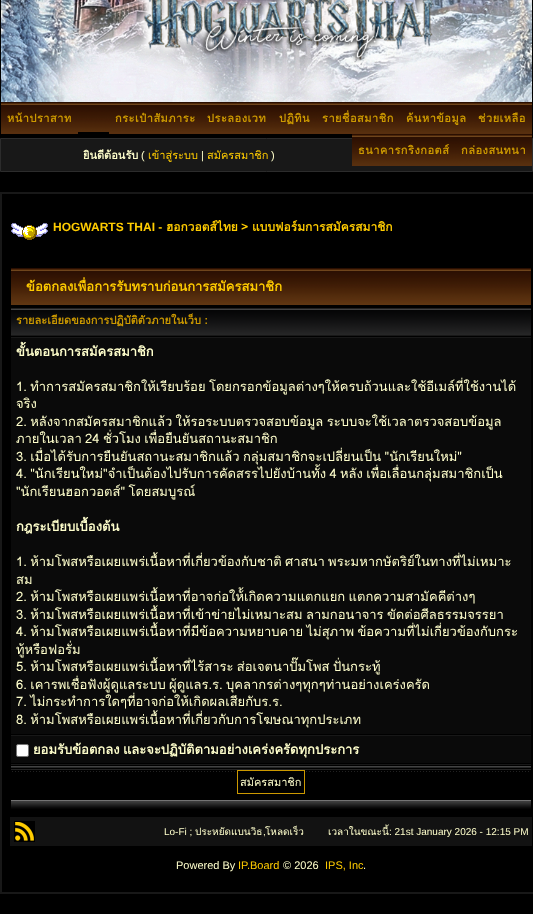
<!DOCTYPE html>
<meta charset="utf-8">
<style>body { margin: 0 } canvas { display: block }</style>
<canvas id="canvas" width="533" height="914"></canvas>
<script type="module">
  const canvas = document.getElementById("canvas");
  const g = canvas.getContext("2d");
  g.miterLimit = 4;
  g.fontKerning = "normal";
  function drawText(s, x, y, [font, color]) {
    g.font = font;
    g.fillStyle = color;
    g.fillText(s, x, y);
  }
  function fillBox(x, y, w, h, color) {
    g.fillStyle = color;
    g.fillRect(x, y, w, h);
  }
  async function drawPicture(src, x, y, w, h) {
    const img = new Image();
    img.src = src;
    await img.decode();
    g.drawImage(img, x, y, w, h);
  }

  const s1 = ["bold 11px Loma", "#CC9900"];
  const s2 = ["bold 11px Loma", "#FFFFCC"];
  const s3 = ["11px Liberation Sans", "#FFFFCC"];
  const s4 = ["11px Loma", "#FFCC00"];
  const s5 = ["bold 12px Liberation Sans", "#FFCC00"];
  const s6 = ["bold 12px Loma", "#FFCC00"];
  const s7 = ["bold 13px Loma", "#FFCC00"];
  const s8 = ["bold 13px Loma", "#FFFFCC"];
  const s9 = ["13px Loma", "#FFFFCC"];
  const s10 = ["11px Loma", "#FFFFCC"];
  const s11 = ["10px Liberation Sans", "#FFFFCC"];
  const s12 = ["10px Loma", "#FFFFCC"];
  const s13 = ["11px Liberation Sans", "#FFCC00"];

  fillBox(0, 0, 533, 914, "#000000");
  await drawPicture("pic1.png", 1, 0, 531, 102);
  await drawPicture("pic2.png", 1, 102, 531, 30);
  fillBox(1, 132, 77, 2, "#582F0F");
  g.letterSpacing = "0.5px";
  drawText("หน้าปราสาท", 7, 122, s1);
  drawText("กระเป๋าสัมภาระ", 115, 122, s1);
  drawText("ประลองเวท", 207, 122, s1);
  drawText("ปฏิทิน", 279, 122, s1);
  drawText("รายชื่อสมาชิก", 322, 122, s1);
  drawText("ค้นหาข้อมูล", 406, 122, s1);
  fillBox(109, 132, 423, 2, "#582F0F");
  drawText("ช่วยเหลือ", 478, 122, s1);
  g.fillStyle = "#181818";
  g.beginPath();
  g.rect(0.5, 138.5, 532, 33);
  g.fill();
  g.strokeStyle = "#2C2C2C";
  g.stroke();
  await drawPicture("pic3.png", 352, 134, 103, 32);
  drawText("ธนาคารกริงกอตส์", 358, 154, s1);
  await drawPicture("pic4.png", 455, 134, 77, 32);
  drawText("กล่องสนทนา", 461, 154, s1);
  g.letterSpacing = "0px";
  drawText("ยินดีต้อนรับ", 83, 159, s2);
  drawText("(", 141, 159, s3);
  drawText("เข้าสู่ระบบ", 148, 159, s4);
  drawText("|", 201, 159, s3);
  drawText("สมัครสมาชิก", 207, 159, s4);
  drawText(")", 271, 159, s3);
  g.strokeStyle = "#181818";
  g.lineWidth = 2;
  g.strokeRect(1, 193, 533, 700);
  await drawPicture("pic5.png", 11, 223, 37, 17);
  drawText("HOGWARTS THAI -", 53, 231, s5);
  drawText("ฮอกวอตส์ไทย", 166, 231, s6);
  drawText("> แบบฟอร์มการสมัครสมาชิก", 241, 231, s6);
  await drawPicture("pic6.png", 11, 268, 520, 37);
  drawText("ข้อตกลงเพื่อการรับทราบก่อนการสมัครสมาชิก", 26, 291, s7);
  await drawPicture("pic7.png", 11, 308, 520, 27);
  fillBox(11, 335, 520, 1, "#181818");
  drawText("รายละเอียดของการปฏิบัติตัวภายในเว็บ :", 16, 324, s1);
  fillBox(11, 338, 520, 396, "#0A0A0A");
  fillBox(11, 337, 520, 1, "#181818");
  drawText("ขั้นตอนการสมัครสมาชิก", 16, 356, s8);
  g.wordSpacing = "-1px";
  drawText("1. ทำการสมัครสมาชิกให้เรียบร้อย โดยกรอกข้อมูลต่างๆให้ครบถ้วนและใช้อีเมล์ที่ใช้งานได้", 16, 391, s9);
  g.wordSpacing = "0px";
  drawText("จริง", 16, 408, s9);
  g.wordSpacing = "-1px";
  drawText("2. หลังจากสมัครสมาชิกแล้ว ให้รอระบบตรวจสอบข้อมูล ระบบจะใช้เวลาตรวจสอบข้อมูล", 16, 426, s9);
  drawText("ภายในเวลา 24 ชั่วโมง เพื่อยืนยันสถานะสมาชิก", 16, 443, s9);
  drawText("3. เมื่อได้รับการยืนยันสถานะสมาชิกแล้ว กลุ่มสมาชิกจะเปลี่ยนเป็น \"นักเรียนใหม่\"", 16, 461, s9);
  drawText("4. \"นักเรียนใหม่\"จำเป็นต้องไปรับการคัดสรรไปยังบ้านทั้ง 4 หลัง เพื่อเลื่อนกลุ่มสมาชิกเป็น", 16, 478, s9);
  drawText("\"นักเรียนฮอกวอตส์\" โดยสมบูรณ์", 16, 496, s9);
  g.wordSpacing = "0px";
  drawText("กฎระเบียบเบื้องต้น", 16, 531, s8);
  g.wordSpacing = "-1px";
  drawText("1. ห้ามโพสหรือเผยแพร่เนื้อหาที่เกี่ยวข้องกับชาติ ศาสนา พระมหากษัตริย์ในทางที่ไม่เหมาะ", 16, 566, s9);
  g.wordSpacing = "0px";
  drawText("สม", 16, 584, s9);
  g.wordSpacing = "-1px";
  drawText("2. ห้ามโพสหรือเผยแพร่เนื้อหาที่อาจก่อให้้เกิดความแตกแยก แตกความสามัคคีต่างๆ", 16, 601, s9);
  drawText("3. ห้ามโพสหรือเผยแพร่เนื้อหาที่เข้าข่ายไม่เหมาะสม ลามกอนาจาร ขัดต่อศีลธรรมจรรยา", 16, 619, s9);
  drawText("4. ห้ามโพสหรือเผยแพร่เนื้อหาที่มีข้อความหยาบคาย ไม่สุภาพ ข้อความที่ไม่เกี่ยวข้องกับกระ", 16, 636, s9);
  g.wordSpacing = "0px";
  drawText("ทู้หรือฟอรั่ม", 16, 654, s9);
  g.wordSpacing = "-1px";
  drawText("5. ห้ามโพสหรือเผยแพร่เนื้อหาที่ไร้สาระ ส่อเจตนาปั๊มโพส ปั่นกระทู้", 16, 671, s9);
  drawText("6. เคารพเชื่อฟังผู้ดูแลระบบ ผู้ดูแลร.ร. บุคลากรต่างๆทุกๆท่านอย่างเคร่งครัด", 16, 689, s9);
  drawText("7. ไม่กระทำการใดๆที่อาจก่อให้เกิดผลเสียกับร.ร.", 16, 706, s9);
  drawText("8. ห้ามโพสหรือเผยแพร่เนื้อหาที่เกี่ยวกับการโฆษณาทุกประเภท", 16, 724, s9);
  fillBox(11, 736, 520, 27, "#0A0A0A");
  fillBox(11, 735, 520, 1, "#181818");
  g.fillStyle = "#FFFFFF";
  g.beginPath();
  g.roundRect(16.5, 744.5, 12, 12, 1.5);
  g.fill();
  g.strokeStyle = "#767676";
  g.lineWidth = 1;
  g.stroke();
  drawText("ยอมรับข้อตกลง และจะปฏิบัติตามอย่างเคร่งครัดทุกประการ", 33, 754, s8);
  await drawPicture("pic8.png", 11, 766, 520, 6);
  fillBox(11, 764, 520, 1, "#181818");
  fillBox(240, 771, 64, 1, "#000000");
  g.strokeStyle = "#CC9900";
  g.strokeRect(237.5, 770.5, 67, 23);
  g.wordSpacing = "0px";
  drawText("สมัครสมาชิก", 240, 786, s10);
  await drawPicture("pic9.png", 11, 800, 520, 9);
  fillBox(10, 817, 522, 29, "#121212");
  await drawPicture("pic10.png", 14, 821, 21, 21);
  drawText("Lo-Fi ;", 164, 835, s11);
  drawText("ประหยัดแบนวิธ", 195, 835, s12);
  drawText(",", 263, 835, s11);
  drawText("โหลดเร็ว", 265, 835, s12);
  drawText("เวลาในขณะนี้", 328, 835, s12);
  drawText(": 21st January 2026 - 12:15 PM", 389, 835, s11);
  drawText("Powered By", 176, 869, s3);
  drawText("IP.Board", 238, 869, s13);
  drawText("© 2026", 283, 869, s3);
  drawText("IPS, Inc", 325, 869, s13);
  drawText(".", 363, 869, s3);
</script>
